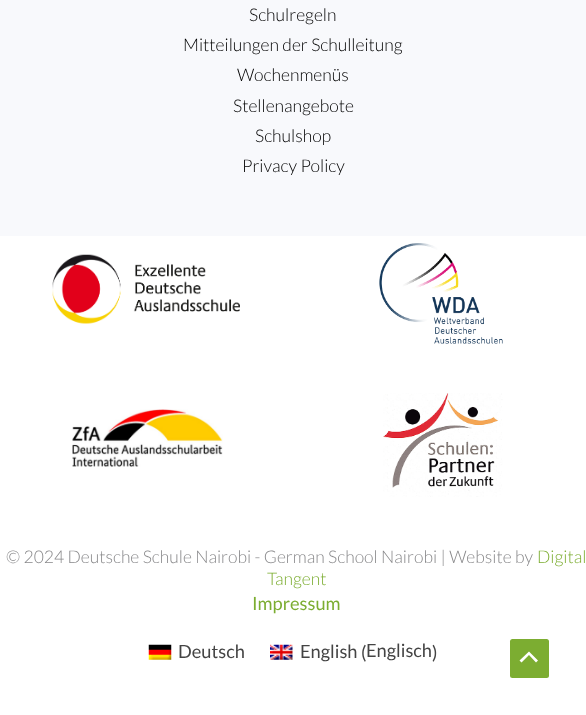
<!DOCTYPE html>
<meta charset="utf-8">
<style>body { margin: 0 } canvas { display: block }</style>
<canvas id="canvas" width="586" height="715"></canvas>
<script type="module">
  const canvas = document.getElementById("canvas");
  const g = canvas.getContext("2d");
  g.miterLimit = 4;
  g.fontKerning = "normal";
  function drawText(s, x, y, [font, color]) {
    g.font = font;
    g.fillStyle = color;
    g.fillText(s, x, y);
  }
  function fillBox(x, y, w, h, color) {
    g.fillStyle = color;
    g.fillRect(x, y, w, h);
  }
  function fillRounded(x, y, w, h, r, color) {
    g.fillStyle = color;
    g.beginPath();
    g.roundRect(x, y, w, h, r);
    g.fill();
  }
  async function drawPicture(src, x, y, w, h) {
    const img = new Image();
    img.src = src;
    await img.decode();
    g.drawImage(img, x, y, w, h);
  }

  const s1 = ["300 17.5px Lato", "#000000"];
  const s2 = ["300 17.5px Lato", "#89898B"];
  const s3 = ["300 17.5px Lato", "#7CAD31"];
  const s4 = ["18.25px Lato", "#7CAD31"];
  const s5 = ["18.25px Lato", "#444444"];

  fillBox(0, 0, 586, 715, "#FFFFFF");
  fillBox(0, 0, 586, 236, "#F8F9FC");
  drawText("Schulregeln", 249, 21, s1);
  drawText("Mitteilungen der Schulleitung", 183, 51, s1);
  drawText("Wochenmenüs", 237, 81, s1);
  drawText("Stellenangebote", 233, 112, s1);
  drawText("Schulshop", 255, 142, s1);
  drawText("Privacy Policy", 242, 172, s1);
  await drawPicture("pic1.png", 52, 254, 188, 70);
  await drawPicture("pic2.png", 379, 243, 124, 101);
  await drawPicture("pic3.png", 72, 409, 151, 58);
  await drawPicture("pic4.png", 383, 393, 120, 104);
  drawText("© 2024 Deutsche Schule Nairobi - German School Nairobi | Website by", 6, 563, s2);
  drawText("Digital", 537, 563, s3);
  drawText("Tangent", 267, 585, s3);
  drawText("Impressum", 252, 610, s4);
  await drawPicture("pic5.png", 148, 644, 24, 16);
  drawText("Deutsch", 178, 658, s5);
  await drawPicture("pic6.png", 270, 644, 23, 16);
  drawText("English", 300, 658, s5);
  drawText("(", 361, 659, s5);
  drawText("Englisch", 366, 657, s5);
  drawText(")", 432, 659, s5);
  fillRounded(510, 639, 39, 39, 2.5, "#7CAD31");
  g.fillStyle = "#FFFFFF";
  g.beginPath();
  g.moveTo(538, 660.5);
  g.lineTo(529, 651.5);
  g.lineTo(519.5, 660.5);
  g.lineTo(521.5, 662.5);
  g.lineTo(529, 655);
  g.lineTo(536, 662.5);
  g.closePath();
  g.fill();
</script>
